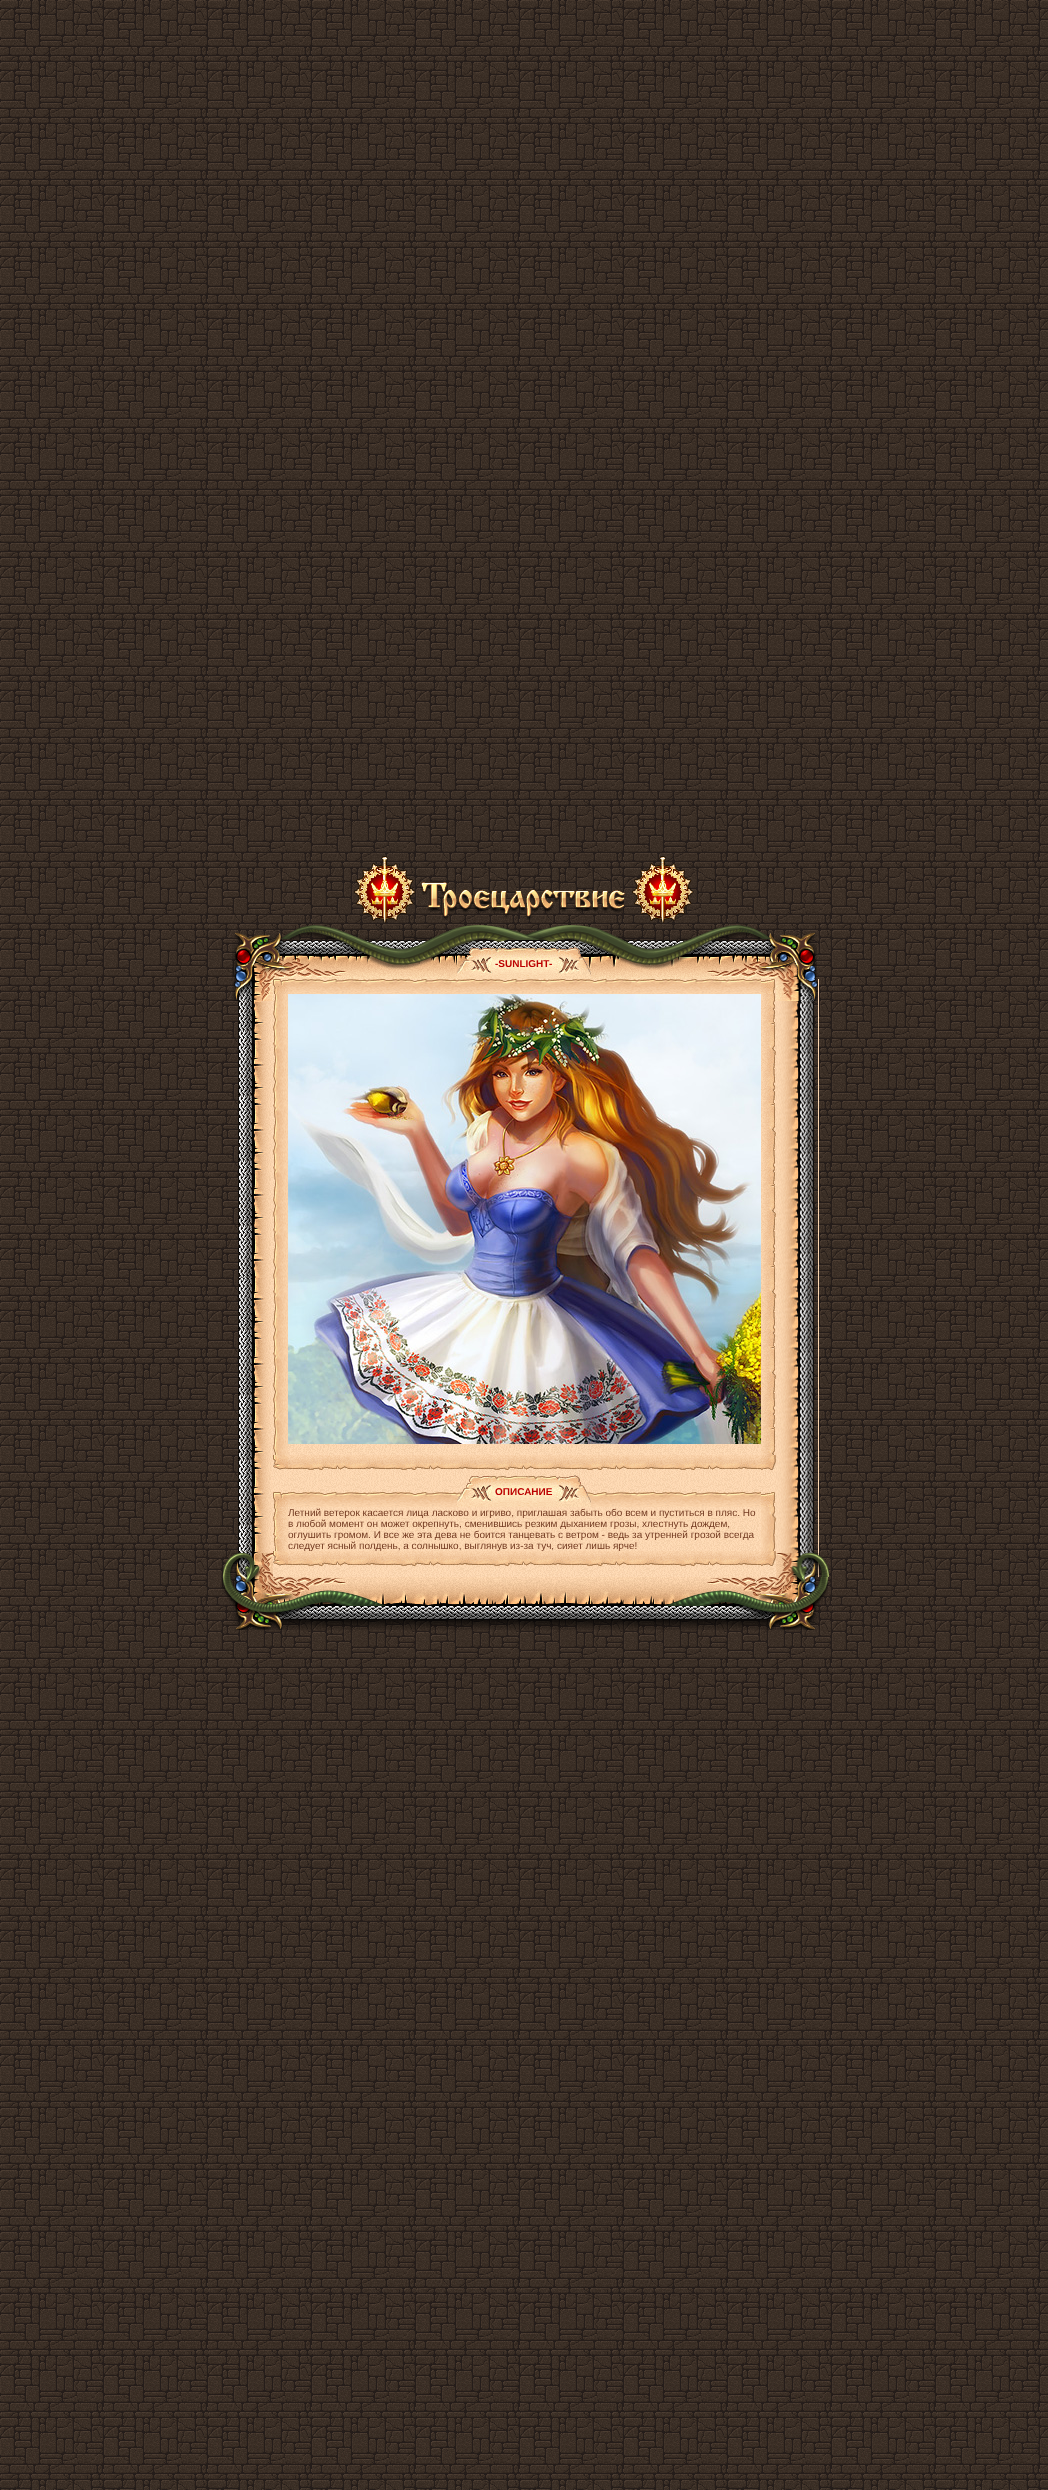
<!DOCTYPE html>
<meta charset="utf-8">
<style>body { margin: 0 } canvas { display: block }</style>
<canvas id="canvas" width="1048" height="2490"></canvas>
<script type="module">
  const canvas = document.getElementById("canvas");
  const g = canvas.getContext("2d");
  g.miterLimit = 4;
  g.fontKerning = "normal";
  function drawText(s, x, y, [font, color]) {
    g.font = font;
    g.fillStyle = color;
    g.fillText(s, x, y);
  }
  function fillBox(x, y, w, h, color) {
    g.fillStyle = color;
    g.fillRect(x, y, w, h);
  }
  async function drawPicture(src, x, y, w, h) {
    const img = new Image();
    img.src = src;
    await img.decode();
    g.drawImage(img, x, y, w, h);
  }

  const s1 = ["bold 10px Liberation Sans", "#BC0000"];
  const s2 = ["10px Liberation Sans", "#723920"];

  fillBox(0, 0, 1048, 2490, "#FFFFFF");
  await drawPicture("pic1.png", 0, 0, 1048, 2490);
  await drawPicture("pic2.png", 354, 856, 62, 67);
  await drawPicture("pic3.png", 420, 881, 206, 39);
  await drawPicture("pic4.png", 632, 856, 62, 67);
  await drawPicture("pic5.png", 232, 925, 585, 54);
  await drawPicture("pic6.png", 457, 948, 35, 31);
  await drawPicture("pic7.png", 492, 948, 64, 31);
  drawText("-SUNLIGHT-", 495, 967, s1);
  await drawPicture("pic8.png", 556, 947, 35, 32);
  await drawPicture("pic9.png", 238, 1278, 35, 299);
  await drawPicture("pic10.png", 221, 1553, 52, 24);
  await drawPicture("pic11.png", 776, 1278, 43, 299);
  await drawPicture("pic12.png", 776, 1553, 53, 24);
  await drawPicture("pic13.png", 238, 980, 35, 298);
  await drawPicture("pic14.png", 232, 979, 41, 22);
  await drawPicture("pic15.png", 776, 979, 43, 299);
  await drawPicture("pic16.png", 776, 979, 42, 22);
  await drawPicture("pic17.png", 273, 979, 503, 598);
  await drawPicture("pic18.png", 273, 979, 15, 15);
  await drawPicture("pic19.png", 288, 979, 473, 15);
  await drawPicture("pic20.png", 761, 979, 14, 15);
  await drawPicture("pic21.png", 273, 994, 15, 461);
  await drawPicture("pic22.png", 288, 1444, 473, 11);
  await drawPicture("pic23.png", 288, 994, 473, 450);
  await drawPicture("pic24.png", 761, 994, 15, 461);
  await drawPicture("pic25.png", 273, 1455, 15, 15);
  await drawPicture("pic26.png", 288, 1455, 473, 15);
  await drawPicture("pic27.png", 761, 1455, 15, 15);
  await drawPicture("pic28.png", 273, 1492, 15, 15);
  await drawPicture("pic29.png", 288, 1492, 473, 15);
  await drawPicture("pic30.png", 457, 1476, 35, 31);
  await drawPicture("pic31.png", 492, 1476, 64, 31);
  drawText("ОПИСАНИЕ", 495, 1495, s1);
  await drawPicture("pic32.png", 556, 1475, 35, 32);
  await drawPicture("pic33.png", 761, 1492, 14, 15);
  await drawPicture("pic34.png", 273, 1507, 15, 44);
  await drawPicture("pic35.png", 288, 1507, 473, 44);
  drawText("Летний ветерок касается лица ласково и игриво, приглашая забыть обо всем и пуститься в пляс. Но", 288, 1516, s2);
  drawText("в любой момент он может окрепнуть, сменившись резким дыханием грозы, хлестнуть дождем,", 288, 1527, s2);
  drawText("оглушить громом. И все же эта дева не боится танцевать с ветром - ведь за утренней грозой всегда", 288, 1538, s2);
  await drawPicture("pic38.png", 288, 1551, 473, 15);
  drawText("следует ясный полдень, а солнышко, выглянув из-за туч, сияет лишь ярче!", 288, 1549, s2);
  await drawPicture("pic36.png", 761, 1507, 15, 44);
  await drawPicture("pic37.png", 273, 1551, 15, 15);
  await drawPicture("pic39.png", 761, 1551, 15, 15);
  await drawPicture("pic40.png", 221, 1577, 607, 53);
</script>
